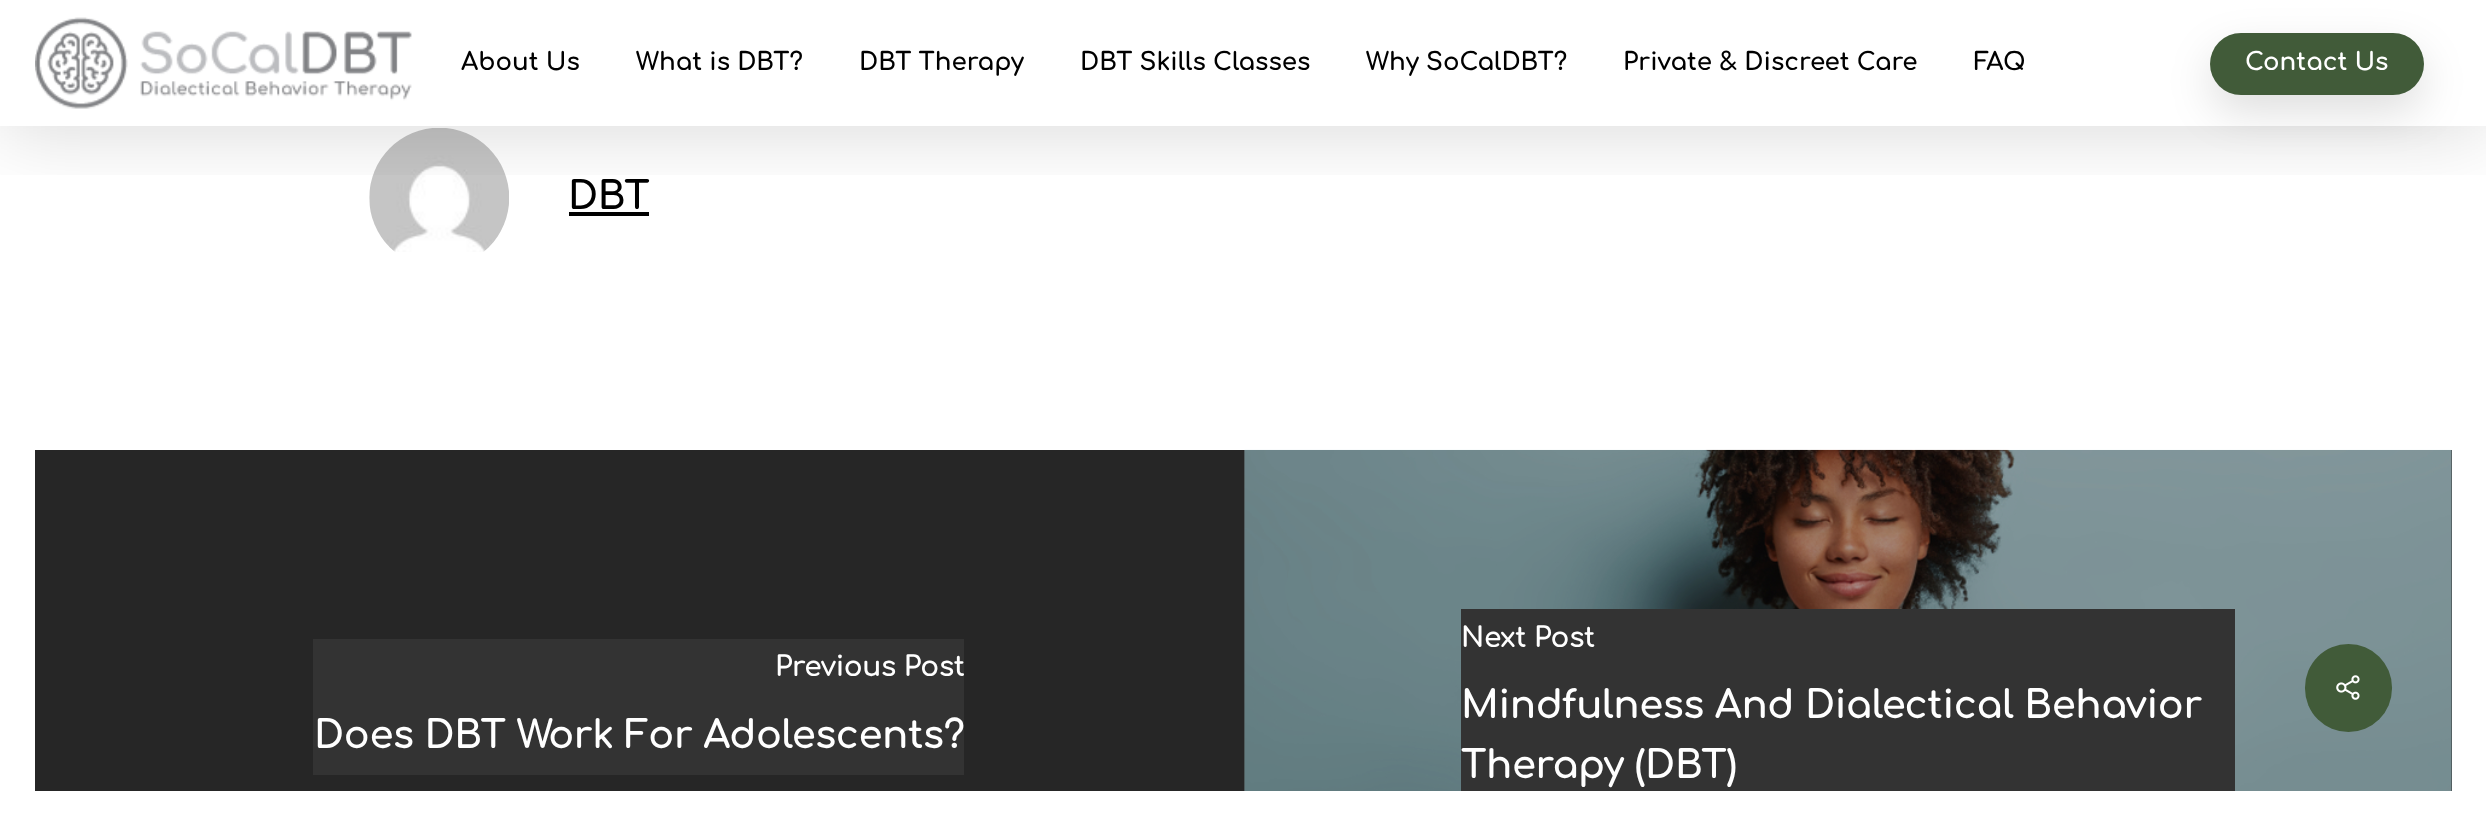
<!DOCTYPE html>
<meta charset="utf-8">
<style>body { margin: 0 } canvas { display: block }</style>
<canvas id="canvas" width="2486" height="825"></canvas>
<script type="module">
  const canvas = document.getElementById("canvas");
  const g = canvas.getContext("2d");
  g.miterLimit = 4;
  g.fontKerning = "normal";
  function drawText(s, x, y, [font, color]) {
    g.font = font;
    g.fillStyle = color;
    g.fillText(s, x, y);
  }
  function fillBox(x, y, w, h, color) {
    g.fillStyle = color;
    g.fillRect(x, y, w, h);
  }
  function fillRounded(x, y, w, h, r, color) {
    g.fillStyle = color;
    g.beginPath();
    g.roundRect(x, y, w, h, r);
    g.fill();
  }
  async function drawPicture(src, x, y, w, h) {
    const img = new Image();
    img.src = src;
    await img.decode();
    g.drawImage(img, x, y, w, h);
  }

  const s1 = ["bold 24.5px Comfortaa", "#000000"];
  const s2 = ["bold 24.5px Comfortaa", "#FFFFFF"];
  const s3 = ["bold 38.5px Comfortaa", "#000000"];
  const s4 = ["bold 28px Comfortaa", "#FFFFFF"];
  const s5 = ["bold 38.5px Comfortaa", "#FFFFFF"];

  fillBox(0, 0, 2486, 825, "#FFFFFF");
  await drawPicture("pic2.png", 369, 128, 140, 124);
  fillBox(569, 212, 80, 4, "#000000");
  g.save();
  g.beginPath();
  g.rect(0, 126, 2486, 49);
  g.clip();
  g.fillStyle = "rgba(0, 0, 0, 0.15)";
  g.filter = "blur(39.5px)";
  g.beginPath();
  g.rect(0, 5, 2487, 126);
  g.fill();
  g.filter = "none";
  g.restore();
  await drawPicture("pic1.png", 35, 17, 377, 92);
  drawText("About Us", 461, 70, s1);
  drawText("What is DBT?", 636, 70, s1);
  drawText("DBT Therapy", 859, 70, s1);
  drawText("DBT Skills Classes", 1080, 70, s1);
  drawText("Why SoCalDBT?", 1366, 70, s1);
  drawText("Private & Discreet Care", 1623, 70, s1);
  drawText("FAQ", 1974, 70, s1);
  g.fillStyle = "rgba(0, 0, 0, 0.13)";
  g.filter = "blur(22px)";
  g.beginPath();
  g.roundRect(2210, 51, 214, 61, 30.5);
  g.fill();
  g.filter = "none";
  fillRounded(2210, 33, 214, 62, 31, "#415B39");
  drawText("Contact Us", 2245, 70, s2);
  g.letterSpacing = "-0.35px";
  drawText("DBT", 568, 209, s3);
  fillBox(35, 450, 2417, 341, "#262626");
  fillBox(313, 639, 651, 136, "#333333");
  drawText("Previous Post", 775, 676, s4);
  drawText("Does DBT Work For Adolescents?", 314, 748, s5);
  await drawPicture("pic3.png", 1244, 449, 1208, 342);
  fillBox(1461, 609, 774, 182, "#333333");
  drawText("Next Post", 1461, 647, s4);
  drawText("Mindfulness And Dialectical Behavior", 1461, 718, s5);
  drawText("Therapy (DBT)", 1461, 778, s5);
  fillRounded(2305, 644, 87, 88, 43.5, "#415B39");
  await drawPicture("pic4.png", 2336, 675, 24, 25);
</script>
